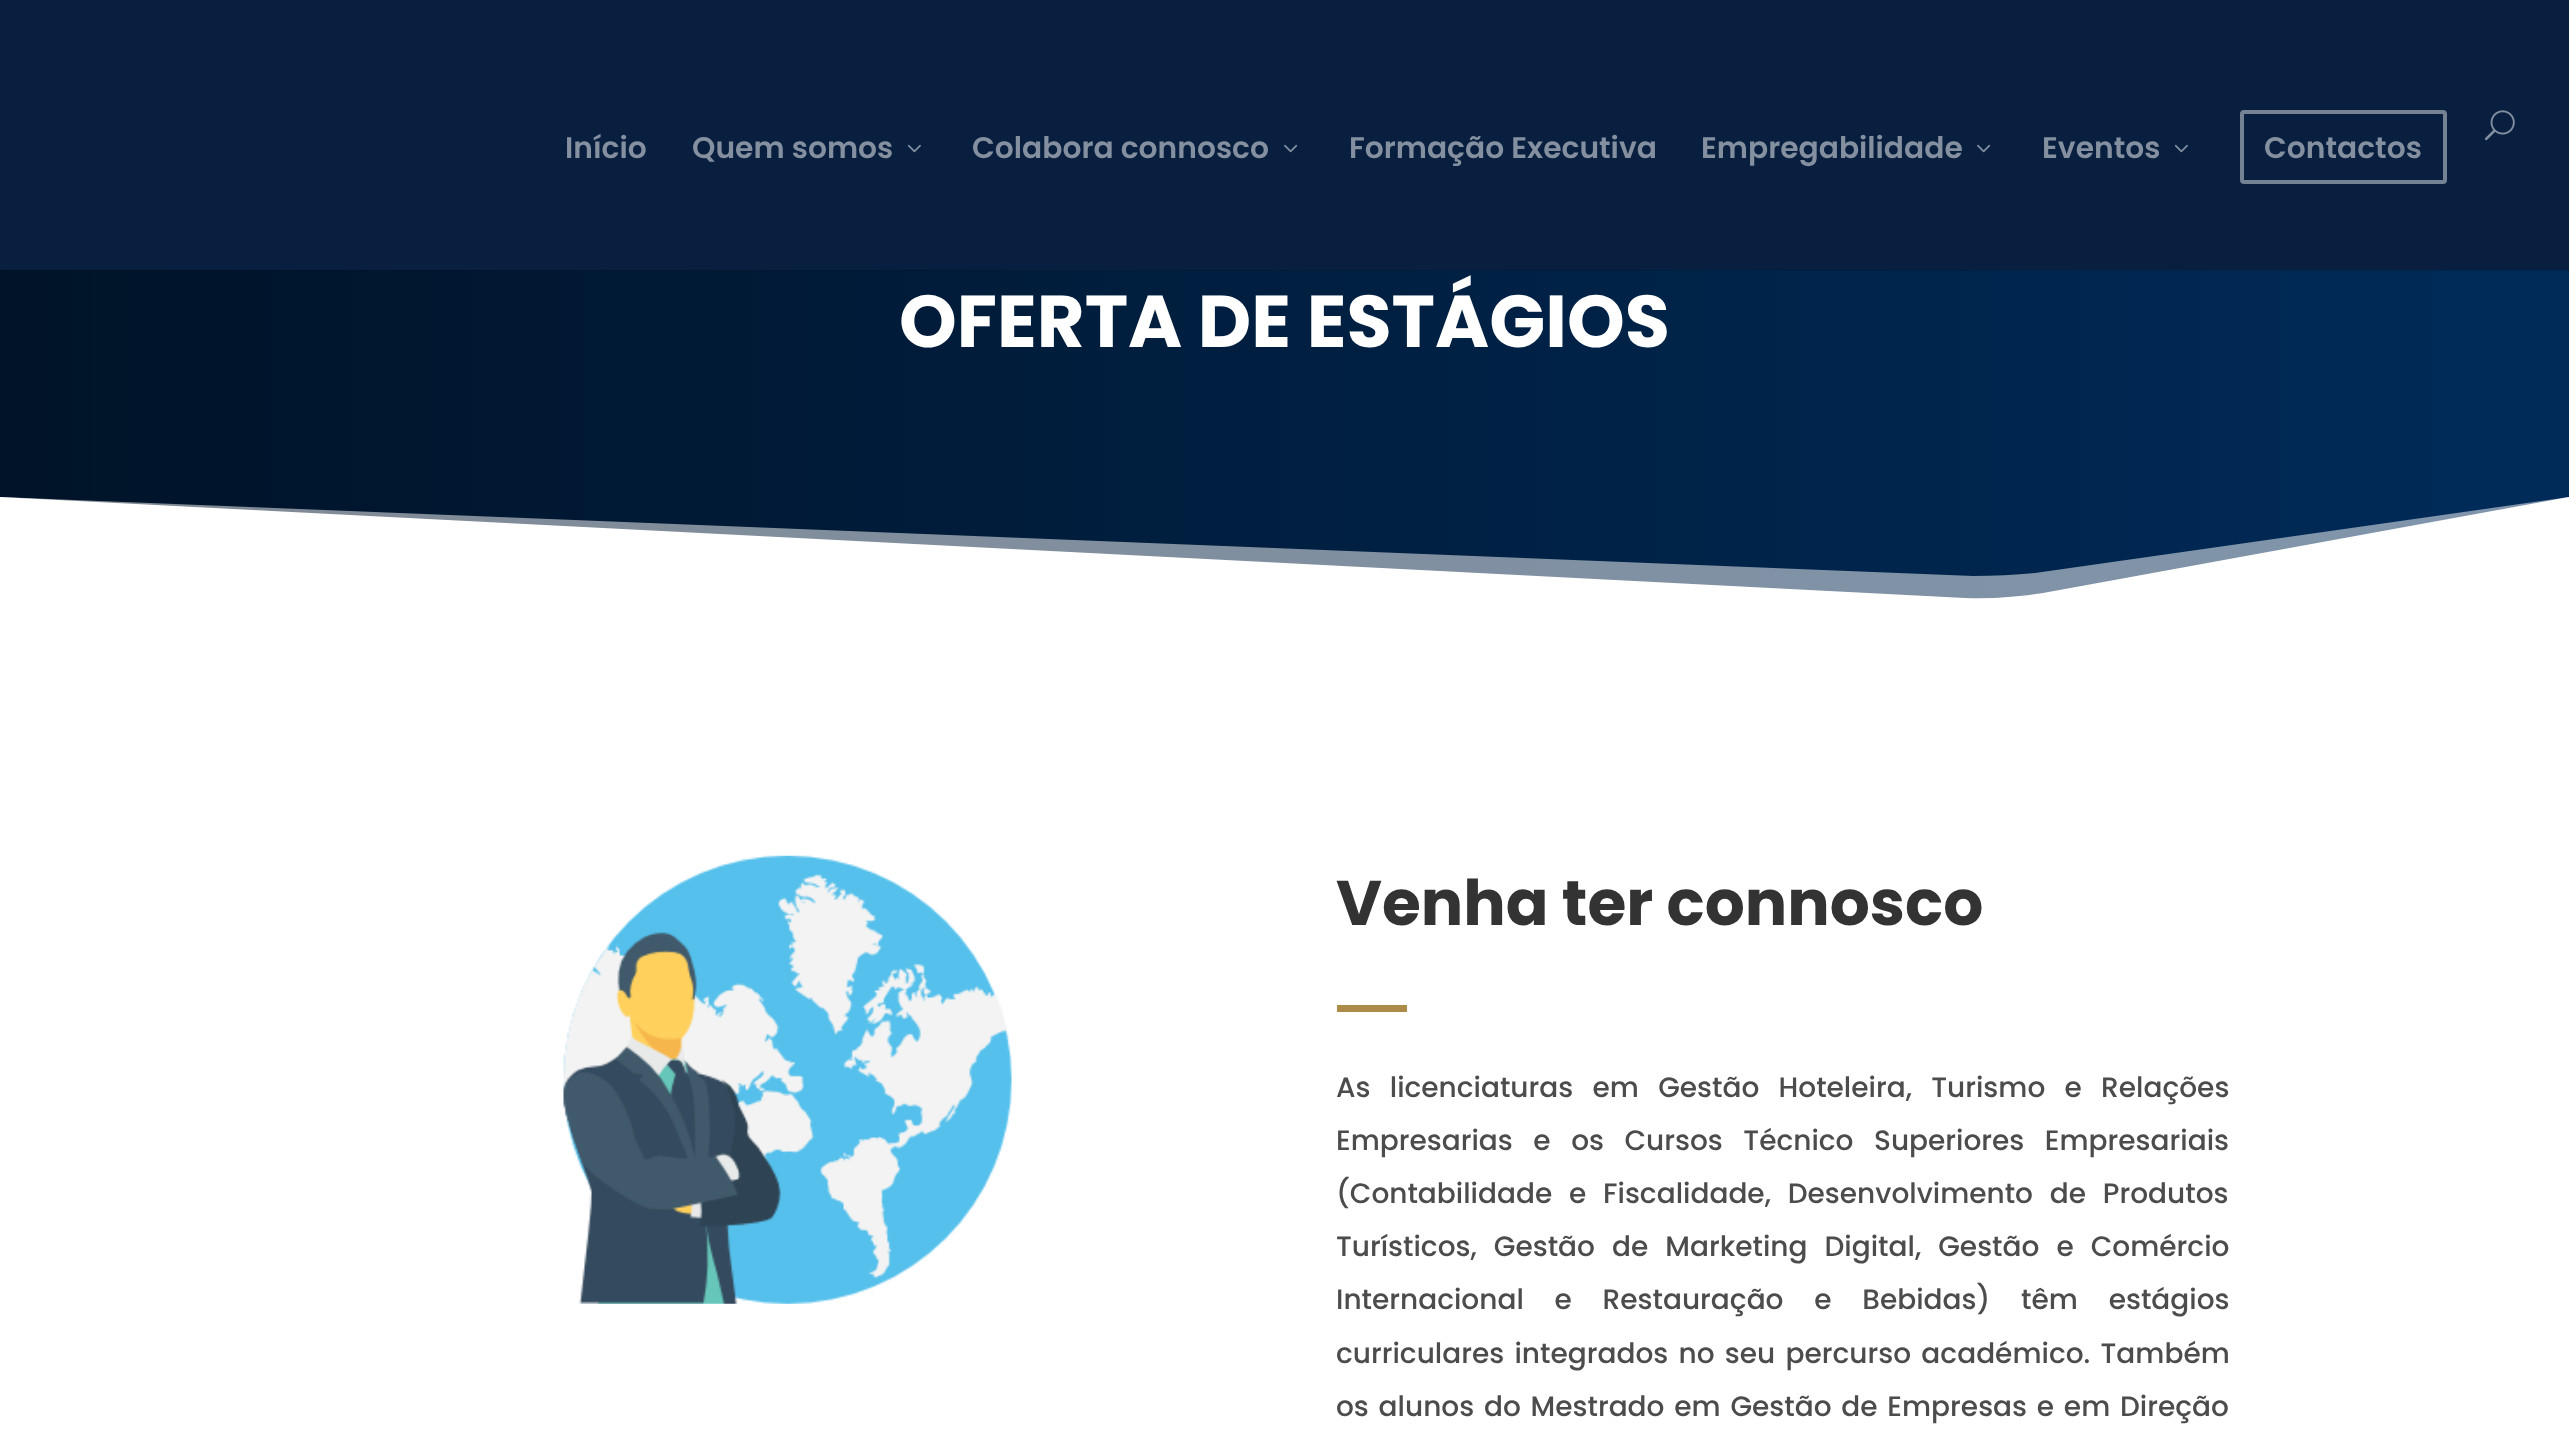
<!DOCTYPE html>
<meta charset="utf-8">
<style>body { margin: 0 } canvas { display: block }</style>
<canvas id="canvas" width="2569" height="1436"></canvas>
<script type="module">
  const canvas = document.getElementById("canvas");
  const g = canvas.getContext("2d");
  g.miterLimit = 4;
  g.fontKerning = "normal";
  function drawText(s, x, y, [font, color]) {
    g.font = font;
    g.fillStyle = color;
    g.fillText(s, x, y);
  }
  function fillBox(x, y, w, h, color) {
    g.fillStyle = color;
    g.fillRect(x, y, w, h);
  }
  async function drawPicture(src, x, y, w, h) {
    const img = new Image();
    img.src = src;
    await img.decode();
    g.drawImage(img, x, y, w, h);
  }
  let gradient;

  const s1 = ["600 29.75px Poppins", "#848F9F"];
  const s2 = ["bold 73.5px Poppins", "#FFFFFF"];
  const s3 = ["bold 63px Poppins", "#333333"];
  const s4 = ["500 28px Poppins", "#4C4C4C"];

  fillBox(0, 0, 2569, 1436, "#FFFFFF");
  fillBox(0, 0, 2569, 270, "#081F3F");
  await drawPicture("pic1.png", 2484, 110, 31, 31);
  drawText("Início", 565, 158, s1);
  drawText("Quem somos", 692, 158, s1);
  await drawPicture("pic2.png", 907, 144, 14, 9);
  drawText("Colabora connosco", 972, 158, s1);
  await drawPicture("pic3.png", 1284, 144, 14, 9);
  drawText("Formação Executiva", 1349, 158, s1);
  drawText("Empregabilidade", 1701, 158, s1);
  await drawPicture("pic3.png", 1977, 144, 14, 9);
  drawText("Eventos", 2042, 158, s1);
  await drawPicture("pic2.png", 2174, 144, 14, 9);
  g.beginPath();
  g.roundRect(2242, 112, 203, 70, 2);
  g.strokeStyle = "#758293";
  g.lineWidth = 4;
  g.stroke();
  drawText("Contactos", 2264, 158, s1);
  gradient = g.createLinearGradient(0, 375, 2569, 375);
  gradient.addColorStop(0, "#001328");
  gradient.addColorStop(1, "#002B59");
  g.fillStyle = gradient;
  g.fillRect(0, 271, 2569, 328);
  gradient = g.createLinearGradient(0, 375, 2569, 375);
  gradient.addColorStop(0, "#001124");
  gradient.addColorStop(1, "#002750");
  g.fillStyle = gradient;
  g.fillRect(0, 270, 2569, 1);
  drawText("OFERTA DE ESTÁGIOS", 899, 347, s2);
  g.fillStyle = "rgba(255, 255, 255, 0.5)";
  g.beginPath();
  g.moveTo(2569, 497);
  g.lineTo(2035, 573);
  g.bezierCurveTo(2015, 575, 1994, 576, 1973, 576);
  g.lineTo(0, 497);
  g.lineTo(0, 612);
  g.lineTo(2569, 612);
  g.closePath();
  g.fill();
  g.fillStyle = "#FFFFFF";
  g.beginPath();
  g.moveTo(2569, 497);
  g.lineTo(2043, 593);
  g.bezierCurveTo(2018, 597, 1991, 599, 1965, 598);
  g.lineTo(0, 497);
  g.lineTo(0, 612);
  g.lineTo(2569, 612);
  g.closePath();
  g.fill();
  await drawPicture("pic4.png", 563, 855, 449, 449);
  drawText("Venha ter connosco", 1336, 925, s3);
  fillBox(1337, 1005, 70, 7, "#AD8B48");
  g.wordSpacing = "12px";
  drawText("As licenciaturas em Gestão Hoteleira, Turismo e Relações", 1336, 1097, s4);
  g.wordSpacing = "13.25px";
  drawText("Empresarias e os Cursos Técnico Superiores Empresariais", 1336, 1150, s4);
  g.wordSpacing = "9.5px";
  drawText("(Contabilidade e Fiscalidade, Desenvolvimento de Produtos", 1336, 1203, s4);
  g.wordSpacing = "9.75px";
  drawText("Turísticos, Gestão de Marketing Digital, Gestão e Comércio", 1336, 1256, s4);
  g.wordSpacing = "23.5px";
  drawText("Internacional e Restauração e Bebidas) têm estágios", 1336, 1309, s4);
  g.wordSpacing = "3px";
  drawText("curriculares integrados no seu percurso académico. Também", 1336, 1363, s4);
  g.wordSpacing = "2.5px";
  drawText("os alunos do Mestrado em Gestão de Empresas e em Direção", 1336, 1416, s4);
</script>
